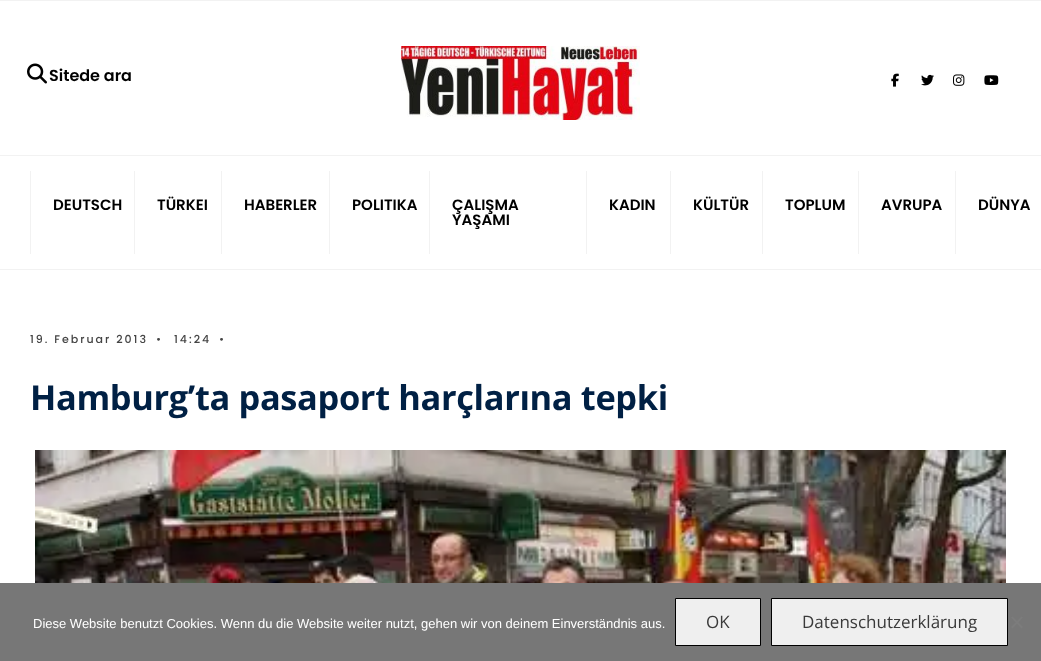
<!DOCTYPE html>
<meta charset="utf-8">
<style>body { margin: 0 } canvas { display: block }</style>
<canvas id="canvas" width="1041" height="661"></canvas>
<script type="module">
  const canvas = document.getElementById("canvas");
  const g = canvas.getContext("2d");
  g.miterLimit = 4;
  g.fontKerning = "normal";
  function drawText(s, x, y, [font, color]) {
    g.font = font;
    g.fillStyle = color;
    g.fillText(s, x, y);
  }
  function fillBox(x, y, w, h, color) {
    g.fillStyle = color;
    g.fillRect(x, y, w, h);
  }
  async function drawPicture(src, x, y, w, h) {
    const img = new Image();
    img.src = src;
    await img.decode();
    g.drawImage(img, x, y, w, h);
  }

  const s1 = ["600 16px Poppins", "#000000"];
  const s2 = ["600 15px Poppins", "#000000"];
  const s3 = ["500 11px Poppins", "#444444"];
  const s4 = ["bold 34.4px Open Sans", "#002044"];
  const s5 = ["13px Liberation Sans", "#FFFFFF"];
  const s6 = ["17px Open Sans", "#3A3A3A"];

  fillBox(0, 0, 1041, 661, "#FFFFFF");
  fillBox(0, 0, 1041, 1, "#F2F2F2");
  fillBox(0, 155, 1041, 1, "#F2F2F2");
  await drawPicture("pic1.png", 27, 63, 20, 21);
  drawText("Sitede ara", 49, 81, s1);
  await drawPicture("pic2.png", 401, 46, 239, 74);
  await drawPicture("pic3.png", 891, 73, 8, 14);
  await drawPicture("pic4.png", 921, 74, 13, 12);
  await drawPicture("pic5.png", 953, 74, 12, 12);
  await drawPicture("pic6.png", 984, 75, 15, 10);
  fillBox(0, 269, 1041, 1, "#F2F2F2");
  fillBox(134, 171, 1, 83, "#F2F2F2");
  fillBox(30, 171, 1, 83, "#F2F2F2");
  drawText("DEUTSCH", 53, 210, s2);
  fillBox(221, 171, 1, 83, "#F2F2F2");
  drawText("TÜRKEI", 157, 210, s2);
  fillBox(329, 171, 1, 83, "#F2F2F2");
  drawText("HABERLER", 244, 210, s2);
  fillBox(429, 171, 1, 83, "#F2F2F2");
  drawText("POLITIKA", 352, 210, s2);
  fillBox(586, 171, 1, 83, "#F2F2F2");
  drawText("ÇALIŞMA", 452, 210, s2);
  drawText("YAŞAMI", 452, 225, s2);
  fillBox(670, 171, 1, 83, "#F2F2F2");
  drawText("KADIN", 609, 210, s2);
  fillBox(762, 171, 1, 83, "#F2F2F2");
  drawText("KÜLTÜR", 693, 210, s2);
  fillBox(858, 171, 1, 83, "#F2F2F2");
  drawText("TOPLUM", 785, 210, s2);
  fillBox(955, 171, 1, 83, "#F2F2F2");
  drawText("AVRUPA", 881, 210, s2);
  drawText("DÜNYA", 978, 210, s2);
  g.letterSpacing = "2px";
  drawText("19. Februar 2013", 30, 343, s3);
  drawText("•", 156, 343, s3);
  drawText("14:24", 174, 343, s3);
  drawText("•", 219, 343, s3);
  g.letterSpacing = "-0.35px";
  drawText("Hamburg’ta pasaport harçlarına tepki", 30, 410, s4);
  await drawPicture("pic7.png", 35, 450, 971, 133);
  fillBox(0, 583, 1041, 78, "#777777");
  g.letterSpacing = "0px";
  drawText("Diese Website benutzt Cookies. Wenn du die Website weiter nutzt, gehen wir von deinem Einverständnis aus.", 33, 628, s5);
  g.fillStyle = "#EFEFEF";
  g.beginPath();
  g.rect(675.5, 598.5, 85, 47);
  g.fill();
  g.strokeStyle = "#000000";
  g.stroke();
  drawText("OK", 706, 628, s6);
  g.fillStyle = "#EFEFEF";
  g.beginPath();
  g.rect(771.5, 598.5, 236, 47);
  g.fill();
  g.stroke();
  drawText("Datenschutzerklärung", 802, 628, s6);
  g.fillStyle = "#7C7C7C";
  g.beginPath();
  g.moveTo(1021.5, 616.5);
  g.lineTo(1023, 617.5);
  g.lineTo(1012.5, 628.5);
  g.lineTo(1011, 627);
  g.closePath();
  g.fill();
  g.beginPath();
  g.moveTo(1011, 617.5);
  g.lineTo(1012.5, 616.5);
  g.lineTo(1023, 627);
  g.lineTo(1021.5, 628.5);
  g.closePath();
  g.fill();
</script>
